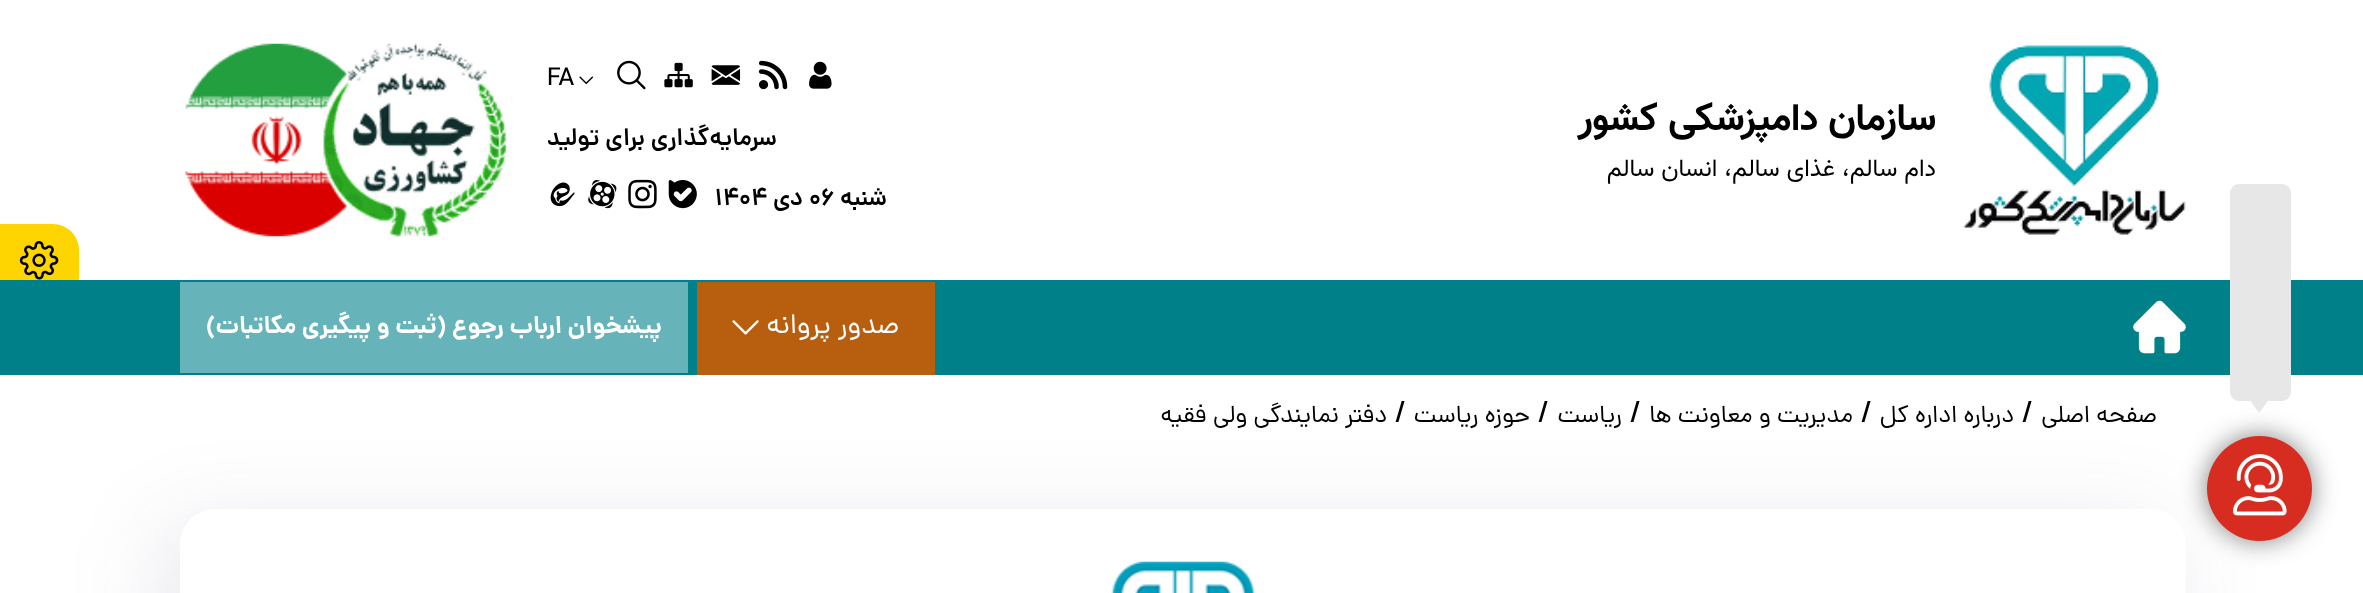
<!DOCTYPE html>
<meta charset="utf-8">
<style>body { margin: 0 } canvas { display: block }</style>
<canvas id="canvas" width="2363" height="593"></canvas>
<script type="module">
  const canvas = document.getElementById("canvas");
  const g = canvas.getContext("2d");
  g.miterLimit = 4;
  g.fontKerning = "normal";
  function drawText(s, x, y, [font, color]) {
    g.font = font;
    g.fillStyle = color;
    g.fillText(s, x, y);
  }
  function fillBox(x, y, w, h, color) {
    g.fillStyle = color;
    g.fillRect(x, y, w, h);
  }
  function fillRounded(x, y, w, h, r, color) {
    g.fillStyle = color;
    g.beginPath();
    g.roundRect(x, y, w, h, r);
    g.fill();
  }
  async function drawPicture(src, x, y, w, h) {
    const img = new Image();
    img.src = src;
    await img.decode();
    g.drawImage(img, x, y, w, h);
  }

  const s1 = ["bold 38.5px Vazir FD", "#000000"];
  const s2 = ["24.5px Vazir FD", "#000000"];
  const s3 = ["500 24.5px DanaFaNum", "#000000"];
  const s4 = ["600 24.5px DanaFaNum", "#000000"];
  const s5 = ["28px DanaFaNum", "#FFFFFF"];
  const s6 = ["bold 24.5px DanaFaNum", "#FFFFFF"];
  const s7 = ["24.5px DanaFaNum", "#000000"];
  const s8 = ["32px DanaFaNum", "#000000"];

  fillBox(0, 0, 2363, 593, "#FFFFFF");
  g.fillStyle = "rgba(35, 43, 102, 0.1)";
  g.filter = "blur(44px)";
  g.beginPath();
  g.roundRect(159, 523, 2013, 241, 39);
  g.fill();
  g.filter = "none";
  fillRounded(180, 509, 2006, 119, 35, "#FFFFFF");
  g.fillStyle = "rgba(0, 0, 0, 0.5)";
  g.filter = "blur(13px)";
  g.beginPath();
  g.roundRect(2207, 436, 105, 105, 52.5);
  g.fill();
  g.filter = "none";
  g.fillStyle = "#FFD500";
  g.beginPath();
  g.roundRect(0, 224, 79, 79, [0, 26, 26, 0]);
  g.fill();
  fillBox(0, 280, 2363, 95, "#00818A");
  fillRounded(2230, 184, 61, 217, 9, "#E7E7E7");
  g.direction = "rtl";
  g.font = "bold 28px DanaFaNum";
  g.fillStyle = "#000000";
  g.save();
  g.translate(2417, 210);
  g.rotate(90 * Math.PI / 180);
  g.fillText("گفتگوی آنلاین", 0, 0);
  g.restore();
  g.fillStyle = "#E7E7E7";
  g.beginPath();
  g.moveTo(2250.5, 401);
  g.lineTo(2268, 401);
  g.lineTo(2259, 413);
  g.closePath();
  g.fill();
  g.fillStyle = "#D62D20";
  g.beginPath();
  g.arc(2259.5, 488.5, 52.5, 0, Math.PI * 2);
  g.fill();
  await drawPicture("pic1.png", 2233, 454, 54, 62);
  await drawPicture("pic2.png", 1963, 45, 223, 190);
  drawText("سازمان دامپزشکی کشور", 1936, 130, s1);
  drawText("دام سالم، غذای سالم، انسان سالم", 1936, 176, s2);
  await drawPicture("pic3.png", 809, 61, 23, 28);
  await drawPicture("pic4.png", 758, 60, 30, 30);
  await drawPicture("pic5.png", 711, 65, 30, 20);
  await drawPicture("pic6.png", 664, 62, 29, 26);
  await drawPicture("pic7.png", 617, 60, 29, 30);
  await drawPicture("pic8.png", 579, 76, 15, 8);
  g.direction = "ltr";
  drawText("FA", 547, 85, s3);
  g.direction = "rtl";
  drawText("سرمایه‌گذاری برای تولید", 777, 145, s4);
  drawText("شنبه", 887, 205, s4);
  g.direction = "ltr";
  drawText("06", 809, 205, s4);
  g.direction = "rtl";
  drawText("دی", 803, 205, s4);
  g.direction = "ltr";
  drawText("1404", 715, 205, s4);
  await drawPicture("pic9.png", 668, 180, 29, 29);
  await drawPicture("pic10.png", 628, 179, 29, 30);
  await drawPicture("pic11.png", 588, 180, 29, 29);
  await drawPicture("pic12.png", 550, 182, 25, 25);
  await drawPicture("pic14.png", 185, 43, 164, 194);
  await drawPicture("pic13.png", 323, 43, 184, 194);
  await drawPicture("pic15.png", 2133, 300, 53, 54);
  fillBox(697, 282, 238, 93, "#B85E0F");
  g.direction = "rtl";
  drawText("صدور پروانه", 899, 333, s5);
  await drawPicture("pic16.png", 732, 320, 27, 15);
  fillBox(180, 282, 508, 91, "#66B3B9");
  drawText("پیشخوان ارباب رجوع (ثبت و پیگیری مکاتبات)", 662, 333, s6);
  await drawPicture("pic17.png", 1111, 561, 145, 32);
  drawText("صفحه اصلی", 2157, 422, s7);
  g.direction = "ltr";
  drawText("/", 2022, 422, s8);
  g.direction = "rtl";
  drawText("درباره اداره کل", 2014, 422, s7);
  g.direction = "ltr";
  drawText("/", 1861, 422, s8);
  g.direction = "rtl";
  drawText("مدیریت و معاونت ها", 1853, 422, s7);
  g.direction = "ltr";
  drawText("/", 1630, 422, s8);
  g.direction = "rtl";
  drawText("ریاست", 1622, 422, s7);
  g.direction = "ltr";
  drawText("/", 1538, 422, s8);
  g.direction = "rtl";
  drawText("حوزه ریاست", 1530, 422, s7);
  g.direction = "ltr";
  drawText("/", 1395, 422, s8);
  g.direction = "rtl";
  drawText("دفتر نمایندگی ولی فقیه", 1387, 422, s7);
  await drawPicture("pic18.png", 19, 241, 40, 39);
</script>
